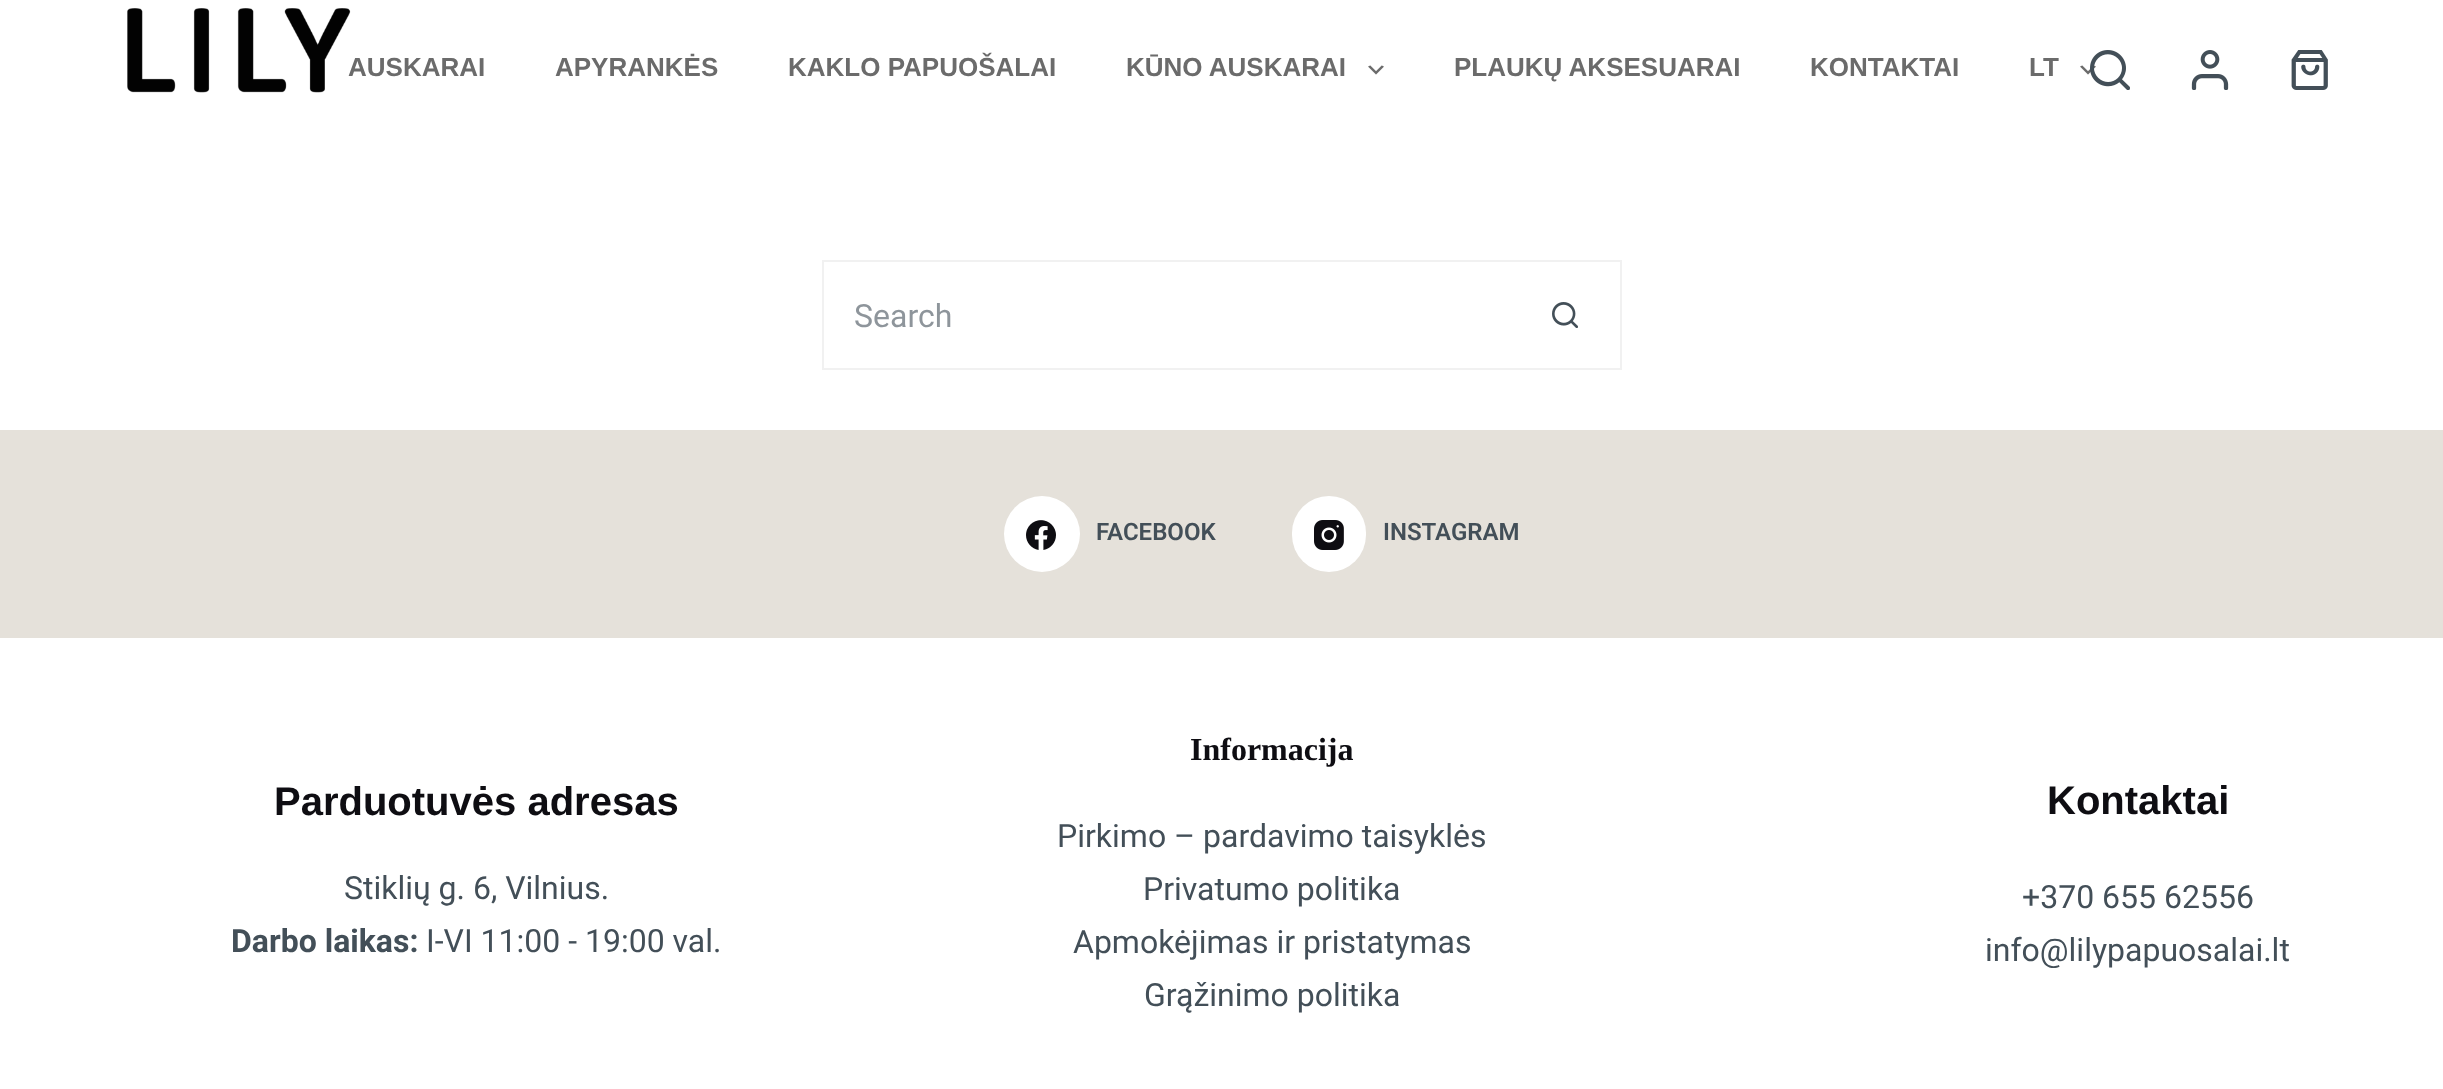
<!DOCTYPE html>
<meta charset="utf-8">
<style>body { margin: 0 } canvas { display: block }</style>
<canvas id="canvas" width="2443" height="1089"></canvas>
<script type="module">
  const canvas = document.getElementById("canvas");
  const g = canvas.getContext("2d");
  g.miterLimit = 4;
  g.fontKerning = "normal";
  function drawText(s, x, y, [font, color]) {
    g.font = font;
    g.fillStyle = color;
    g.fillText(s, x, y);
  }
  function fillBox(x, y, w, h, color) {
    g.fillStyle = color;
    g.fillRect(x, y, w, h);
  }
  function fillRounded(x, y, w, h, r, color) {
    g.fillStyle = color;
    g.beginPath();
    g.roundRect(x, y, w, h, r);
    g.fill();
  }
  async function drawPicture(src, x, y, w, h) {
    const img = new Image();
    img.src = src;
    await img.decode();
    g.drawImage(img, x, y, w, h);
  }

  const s1 = ["bold 26px Liberation Sans", "#6B6B6B"];
  const s2 = ["32px Roboto", "#8E959B"];
  const s3 = ["600 24px Roboto", "#434F58"];
  const s4 = ["bold 40px Liberation Sans", "#0E0D12"];
  const s5 = ["32px Roboto", "#434F58"];
  const s6 = ["bold 32px Roboto", "#434F58"];
  const s7 = ["bold 32px Liberation Serif", "#0E0D12"];

  fillBox(0, 0, 2443, 1089, "#FFFFFF");
  await drawPicture("pic1.png", 127, 8, 224, 85);
  drawText("AUSKARAI", 348, 76, s1);
  drawText("APYRANKĖS", 555, 76, s1);
  drawText("KAKLO PAPUOŠALAI", 788, 76, s1);
  drawText("KŪNO AUSKARAI", 1126, 76, s1);
  await drawPicture("pic2.png", 1368, 65, 16, 10);
  drawText("PLAUKŲ AKSESUARAI", 1454, 76, s1);
  drawText("KONTAKTAI", 1810, 76, s1);
  drawText("LT", 2029, 76, s1);
  await drawPicture("pic2.png", 2080, 65, 16, 10);
  await drawPicture("pic3.png", 2090, 50, 40, 40);
  await drawPicture("pic4.png", 2191, 50, 38, 40);
  await drawPicture("pic5.png", 2291, 50, 37, 40);
  fillBox(822, 260, 800, 2, "#F1F1F1");
  fillBox(822, 368, 690, 2, "#F1F1F1");
  fillBox(822, 260, 2, 110, "#F1F1F1");
  drawText("Search", 854, 327, s2);
  fillBox(1620, 260, 2, 110, "#F1F1F1");
  fillBox(1512, 368, 110, 2, "#F1F1F1");
  await drawPicture("pic6.png", 1552, 302, 26, 26);
  fillBox(0, 430, 2443, 208, "#E5E1DA");
  g.fillStyle = "#FFFFFF";
  g.beginPath();
  g.arc(1042, 534, 38, 0, Math.PI * 2);
  g.fill();
  await drawPicture("pic7.png", 1026, 520, 30, 30);
  drawText("FACEBOOK", 1096, 540, s3);
  fillRounded(1292, 496, 74, 76, 37, "#FFFFFF");
  await drawPicture("pic8.png", 1314, 520, 30, 30);
  drawText("INSTAGRAM", 1383, 540, s3);
  drawText("Parduotuvės adresas", 274, 815, s4);
  drawText("Stiklių g. 6, Vilnius.", 344, 899, s5);
  drawText("Darbo laikas:", 231, 952, s6);
  drawText("I-VI 11:00 - 19:00 val.", 426, 952, s5);
  drawText("Informacija", 1190, 760, s7);
  drawText("Pirkimo – pardavimo taisyklės", 1057, 847, s5);
  drawText("Privatumo politika", 1143, 900, s5);
  drawText("Apmokėjimas ir pristatymas", 1073, 953, s5);
  drawText("Grąžinimo politika", 1144, 1006, s5);
  drawText("Kontaktai", 2047, 814, s4);
  drawText("+370 655 62556", 2022, 908, s5);
  drawText("info@lilypapuosalai.lt", 1985, 961, s5);
</script>
